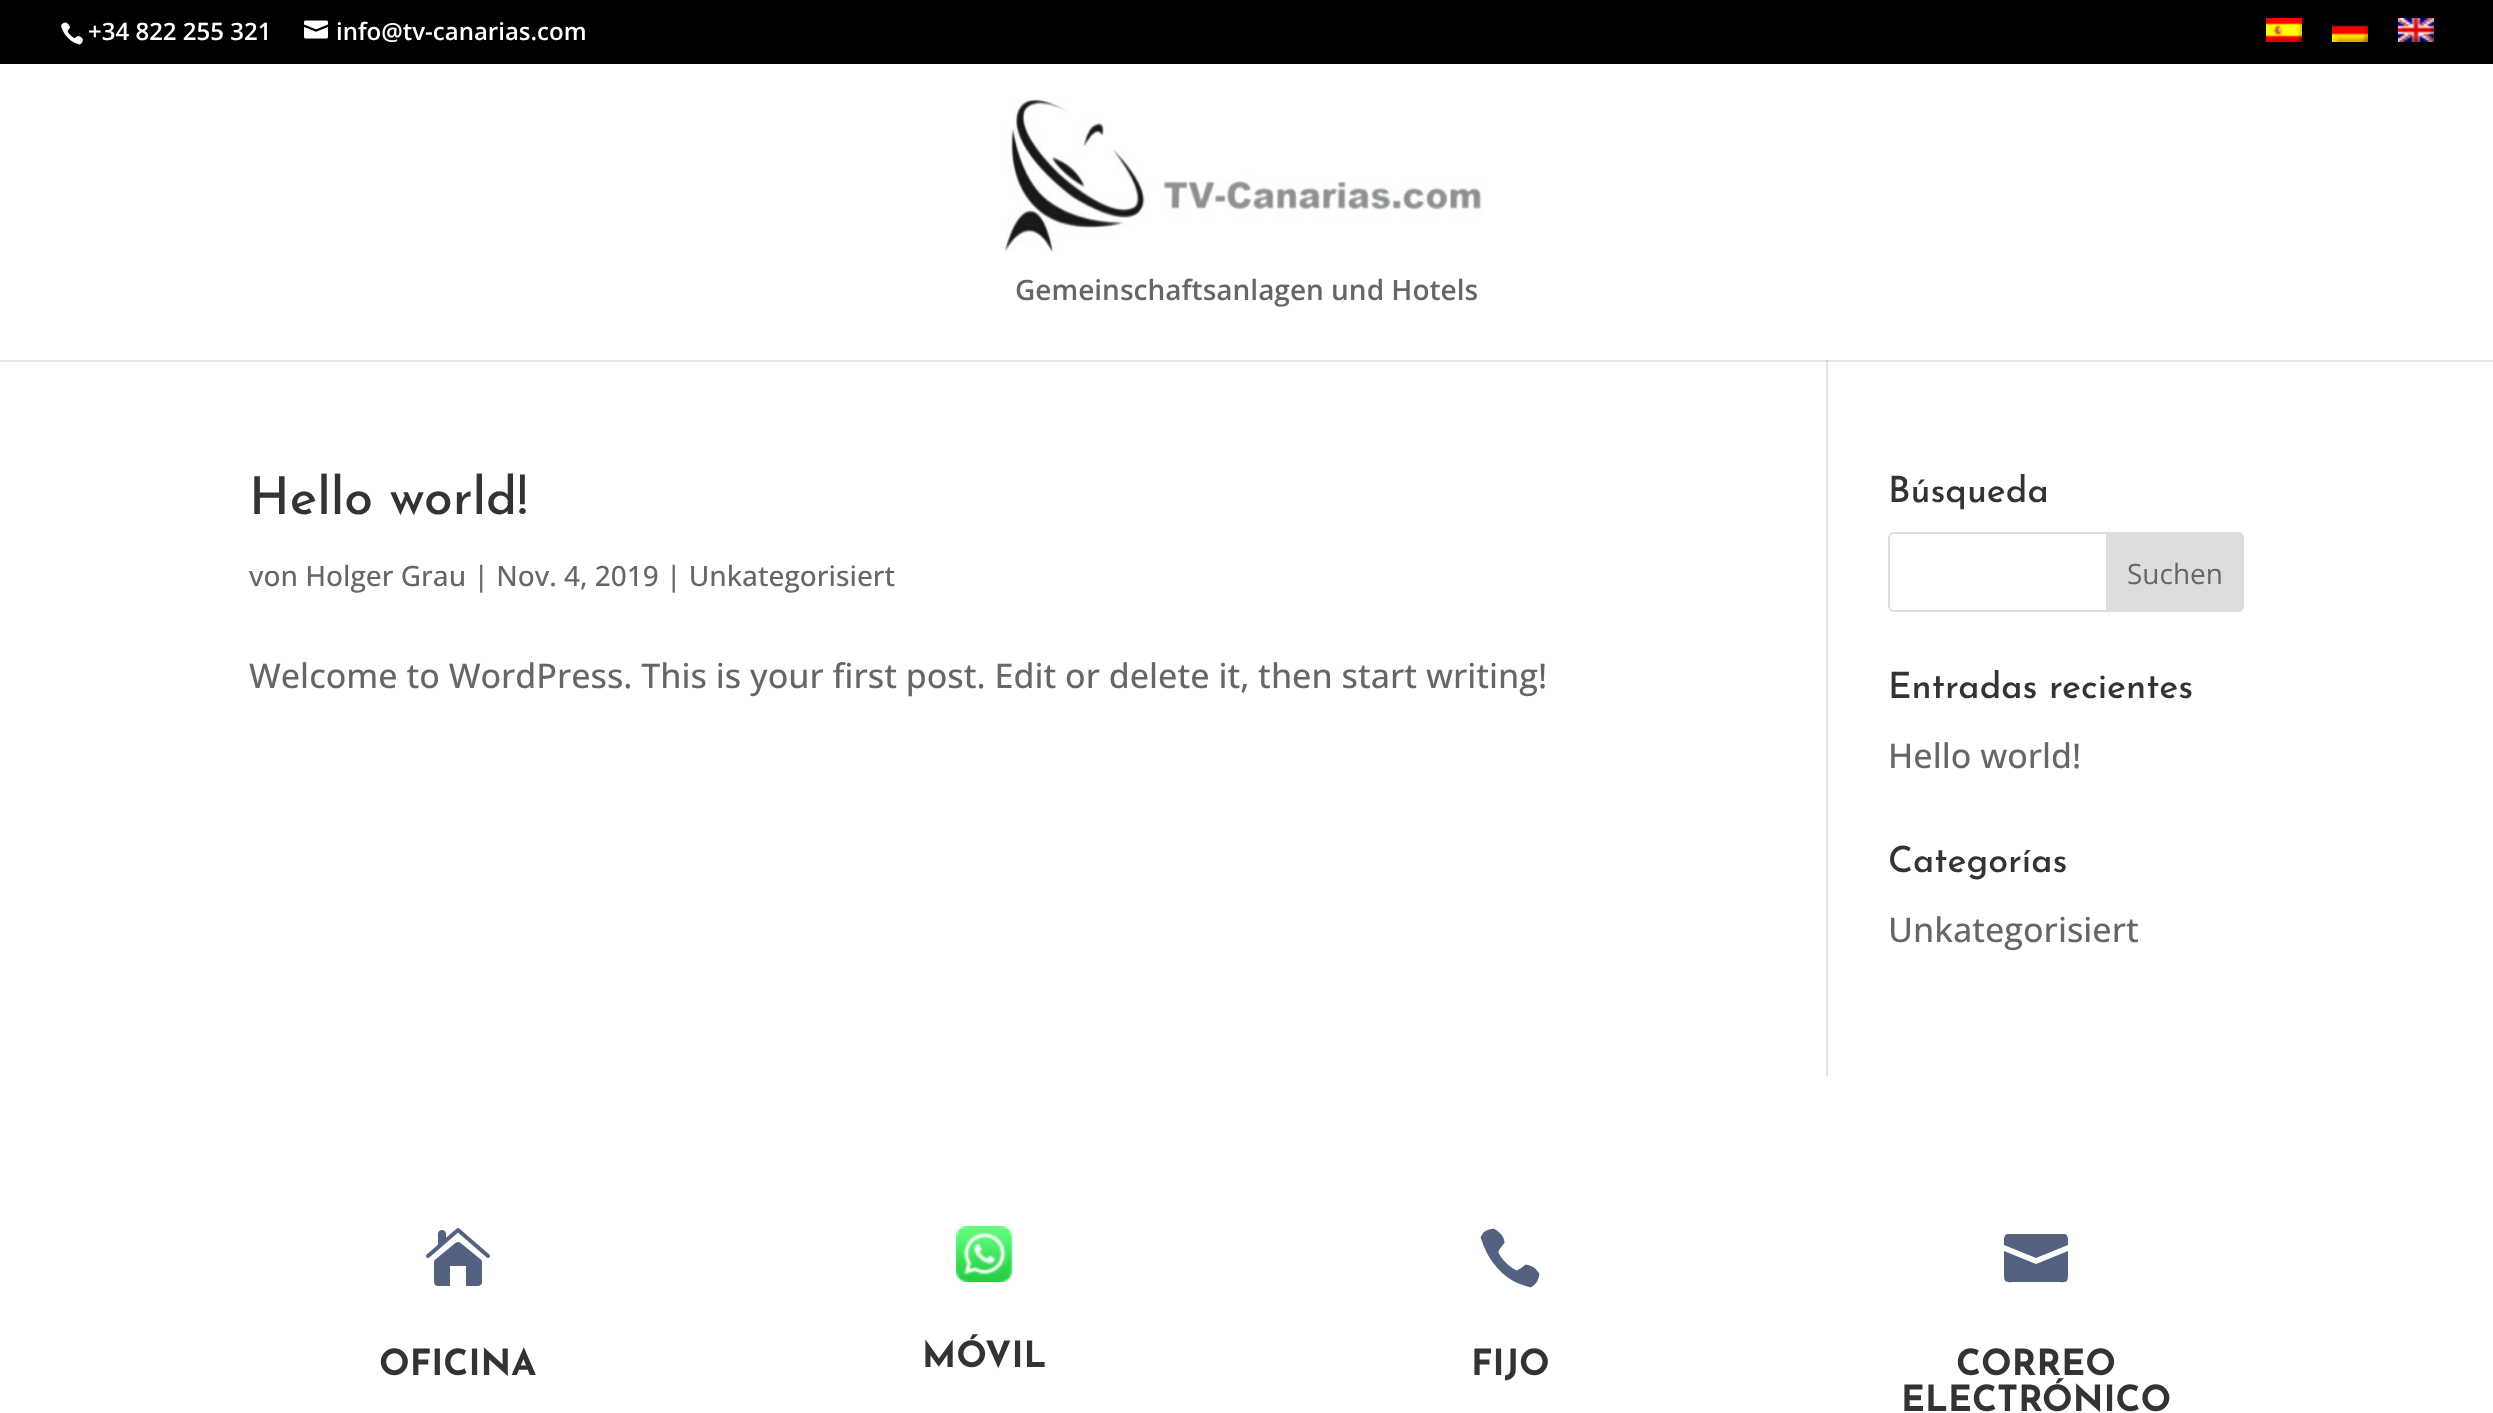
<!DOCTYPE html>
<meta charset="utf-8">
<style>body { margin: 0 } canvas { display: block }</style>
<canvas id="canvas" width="2493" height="1413"></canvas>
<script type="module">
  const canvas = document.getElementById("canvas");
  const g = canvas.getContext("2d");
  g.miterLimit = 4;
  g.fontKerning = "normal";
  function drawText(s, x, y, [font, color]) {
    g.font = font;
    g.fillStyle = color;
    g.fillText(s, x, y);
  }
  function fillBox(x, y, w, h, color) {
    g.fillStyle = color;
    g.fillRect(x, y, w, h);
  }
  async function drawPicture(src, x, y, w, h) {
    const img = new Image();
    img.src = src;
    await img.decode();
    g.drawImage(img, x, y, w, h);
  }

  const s1 = ["600 24px Open Sans", "#FFFFFF"];
  const s2 = ["600 28px Open Sans", "#666666"];
  const s3 = ["500 52px Josefin Sans", "#333333"];
  const s4 = ["500 28px Open Sans", "#666666"];
  const s5 = ["500 34px Open Sans", "#666666"];
  const s6 = ["500 36px Josefin Sans", "#333333"];
  const s7 = ["28px Open Sans", "#666666"];
  const s8 = ["bold 36px Josefin Sans", "#333333"];

  fillBox(0, 0, 2493, 1413, "#FFFFFF");
  fillBox(0, 360, 2493, 2, "#E6E6E6");
  fillBox(0, 0, 2493, 64, "#000000");
  await drawPicture("pic1.png", 61, 22, 22, 23);
  drawText("+34 822 255 321", 88, 40, s1);
  await drawPicture("pic2.png", 304, 20, 24, 19);
  drawText("info@tv-canarias.com", 336, 40, s1);
  await drawPicture("pic3.png", 2266, 18, 36, 24);
  await drawPicture("pic4.png", 2332, 25, 36, 17);
  await drawPicture("pic5.png", 2398, 18, 36, 24);
  await drawPicture("pic6.png", 1004, 99, 479, 154);
  drawText("Gemeinschaftsanlagen und Hotels", 1015, 300, s2);
  fillBox(1826, 360, 2, 716, "#E2E2E2");
  fillBox(1826, 360, 2, 2, "#CBCBCB");
  drawText("Hello world!", 249, 514, s3);
  drawText("von Holger Grau | Nov. 4, 2019 | Unkategorisiert", 249, 586, s4);
  drawText("Welcome to WordPress. This is your first post. Edit or delete it, then start writing!", 249, 688, s5);
  drawText("Búsqueda", 1888, 502, s6);
  g.beginPath();
  g.roundRect(1889, 533, 354, 78, 5);
  g.strokeStyle = "#DDDDDD";
  g.lineWidth = 2;
  g.stroke();
  g.fillStyle = "#DDDDDD";
  g.beginPath();
  g.roundRect(2107, 533, 136, 78, [0, 5, 5, 0]);
  g.fill();
  g.stroke();
  drawText("Suchen", 2127, 584, s7);
  drawText("Entradas recientes", 1888, 698, s6);
  drawText("Hello world!", 1888, 768, s5);
  drawText("Categorías", 1888, 872, s6);
  drawText("Unkategorisiert", 1888, 942, s5);
  await drawPicture("pic7.png", 426, 1228, 64, 58);
  drawText("OFICINA", 379, 1375, s8);
  await drawPicture("pic8.png", 956, 1226, 57, 56);
  drawText("MÓVIL", 922, 1367, s8);
  await drawPicture("pic9.png", 1480, 1228, 60, 60);
  drawText("FIJO", 1471, 1375, s8);
  g.fillStyle = "#546180";
  g.beginPath();
  g.moveTo(2064, 1234);
  g.lineTo(2008, 1234);
  g.bezierCurveTo(2003, 1234, 2004, 1241, 2004, 1245);
  g.lineTo(2036, 1258);
  g.lineTo(2068, 1245);
  g.bezierCurveTo(2068, 1241, 2069, 1234, 2064, 1234);
  g.closePath();
  g.moveTo(2004, 1251);
  g.lineTo(2004, 1274);
  g.bezierCurveTo(2004, 1284, 2006, 1282, 2017, 1282);
  g.lineTo(2055, 1282);
  g.bezierCurveTo(2066, 1282, 2068, 1284, 2068, 1274);
  g.lineTo(2068, 1251);
  g.lineTo(2036, 1264);
  g.closePath();
  g.fill();
  drawText("CORREO", 1956, 1375, s8);
  drawText("ELECTRÓNICO", 1901, 1411, s8);
</script>
